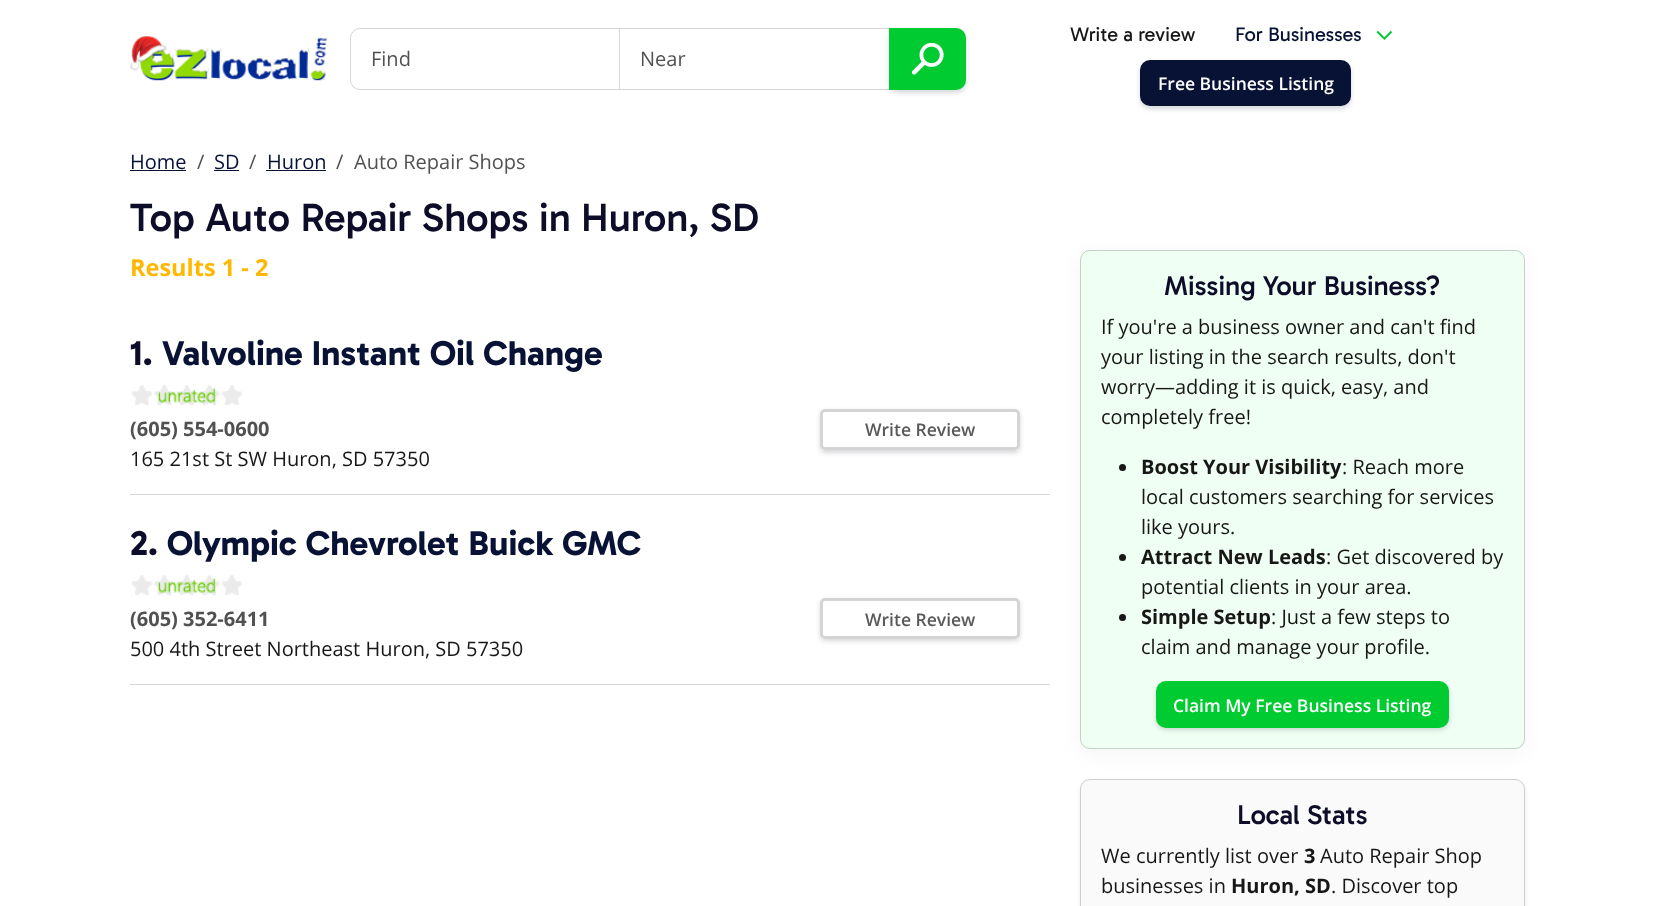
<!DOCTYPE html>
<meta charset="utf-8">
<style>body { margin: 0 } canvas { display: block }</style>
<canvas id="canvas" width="1654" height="906"></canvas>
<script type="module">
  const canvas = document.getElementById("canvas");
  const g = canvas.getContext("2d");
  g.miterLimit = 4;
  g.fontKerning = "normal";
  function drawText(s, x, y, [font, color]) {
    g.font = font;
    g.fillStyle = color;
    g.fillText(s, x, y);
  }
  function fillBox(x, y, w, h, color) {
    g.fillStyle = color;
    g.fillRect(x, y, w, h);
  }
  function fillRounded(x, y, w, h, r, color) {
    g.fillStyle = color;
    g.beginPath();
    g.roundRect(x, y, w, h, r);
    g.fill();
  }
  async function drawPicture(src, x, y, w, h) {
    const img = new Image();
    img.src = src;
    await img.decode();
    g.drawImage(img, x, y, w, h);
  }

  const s1 = ["20px Open Sans", "#515151"];
  const s2 = ["20px Gabarito", "#171717"];
  const s3 = ["20px Gabarito", "#081235"];
  const s4 = ["600 17.5px Open Sans", "#FFFFFF"];
  const s5 = ["20px Open Sans", "#081235"];
  const s6 = ["500 40px Gabarito", "#0D0D29"];
  const s7 = ["bold 23.5px Open Sans", "#FFB800"];
  const s8 = ["bold 35px Gabarito", "#0D0D29"];
  const s9 = ["bold 35px Gabarito", "#081235"];
  const s10 = ["bold 20px Open Sans", "#515151"];
  const s11 = ["20px Open Sans", "#171717"];
  const s12 = ["600 17.5px Open Sans", "#595959"];
  const s13 = ["500 27.5px Gabarito", "#0D0D29"];
  const s14 = ["bold 20px Open Sans", "#171717"];

  fillBox(0, 0, 1654, 906, "#FFFFFF");
  await drawPicture("pic1.png", 130, 36, 198, 45);
  g.beginPath();
  g.roundRect(350.5, 28.5, 269, 61, [9.5, 0, 0, 9.5]);
  g.strokeStyle = "#D6D6D6";
  g.stroke();
  drawText("Find", 371, 66, s1);
  g.strokeRect(619.5, 28.5, 270, 61);
  drawText("Near", 640, 66, s1);
  g.fillStyle = "rgba(5, 10, 31, 0.16)";
  g.filter = "blur(2.5px)";
  g.beginPath();
  g.roundRect(889, 30, 77, 63, 10);
  g.fill();
  g.filter = "none";
  g.fillStyle = "#00CC32";
  g.beginPath();
  g.roundRect(890.5, 29.5, 74, 59, [0, 8.5, 8.5, 0]);
  g.fill();
  g.strokeStyle = "#00CC32";
  g.lineWidth = 3;
  g.stroke();
  await drawPicture("pic2.png", 911, 43, 33, 32);
  drawText("Write a review", 1070, 41, s2);
  drawText("For Businesses", 1235, 41, s3);
  await drawPicture("pic3.png", 1376, 30, 16, 10);
  g.fillStyle = "rgba(5, 10, 31, 0.16)";
  g.filter = "blur(2.5px)";
  g.beginPath();
  g.roundRect(1140, 63, 211, 46, 10);
  g.fill();
  g.filter = "none";
  g.fillStyle = "#081235";
  g.beginPath();
  g.roundRect(1141.5, 61.5, 208, 43, 8.5);
  g.fill();
  g.strokeStyle = "#081235";
  g.stroke();
  drawText("Free Business Listing", 1158, 90, s4);
  drawText("Home", 130, 169, s5);
  fillBox(130, 170, 56, 1, "#081235");
  drawText("/", 197, 169, s1);
  drawText("SD", 214, 169, s5);
  fillBox(214, 170, 25, 1, "#081235");
  drawText("/", 249, 169, s1);
  drawText("Huron", 267, 169, s5);
  fillBox(266, 170, 60, 1, "#081235");
  drawText("/", 336, 169, s1);
  drawText("Auto Repair Shops", 354, 169, s1);
  drawText("Top Auto Repair Shops in Huron, SD", 130, 231, s6);
  drawText("Results 1 - 2", 130, 276, s7);
  fillBox(130, 494, 920, 1, "#D6D6D6");
  drawText("1.", 130, 365, s8);
  drawText("Valvoline Instant Oil Change", 162, 365, s9);
  await drawPicture("pic4.png", 131, 385, 112, 21);
  drawText("(605) 554-0600", 130, 436, s10);
  drawText("165 21st St SW Huron, SD 57350", 130, 466, s11);
  g.save();
  g.beginPath();
  g.moveTo(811, 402);
  g.lineTo(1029, 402);
  g.lineTo(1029, 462);
  g.lineTo(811, 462);
  g.closePath();
  g.moveTo(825, 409);
  g.lineTo(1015, 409);
  g.bezierCurveTo(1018, 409, 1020, 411, 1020, 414);
  g.lineTo(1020, 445);
  g.bezierCurveTo(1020, 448, 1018, 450, 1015, 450);
  g.lineTo(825, 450);
  g.bezierCurveTo(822, 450, 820, 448, 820, 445);
  g.lineTo(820, 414);
  g.bezierCurveTo(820, 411, 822, 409, 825, 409);
  g.closePath();
  g.clip("evenodd");
  g.fillStyle = "rgba(5, 10, 31, 0.16)";
  g.filter = "blur(2.5px)";
  g.beginPath();
  g.roundRect(820, 411, 200, 42, 5);
  g.fill();
  g.filter = "none";
  g.restore();
  g.beginPath();
  g.roundRect(821.5, 410.5, 197, 38, 3.5);
  g.strokeStyle = "#D4D4D4";
  g.stroke();
  drawText("Write Review", 865, 436, s12);
  fillBox(130, 684, 920, 1, "#D6D6D6");
  drawText("2.", 130, 555, s8);
  drawText("Olympic Chevrolet Buick GMC", 167, 555, s9);
  await drawPicture("pic5.png", 131, 575, 112, 21);
  drawText("(605) 352-6411", 130, 626, s10);
  drawText("500 4th Street Northeast Huron, SD 57350", 130, 656, s11);
  g.save();
  g.beginPath();
  g.moveTo(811, 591);
  g.lineTo(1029, 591);
  g.lineTo(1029, 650);
  g.lineTo(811, 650);
  g.closePath();
  g.moveTo(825, 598);
  g.lineTo(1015, 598);
  g.bezierCurveTo(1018, 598, 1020, 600, 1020, 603);
  g.lineTo(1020, 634);
  g.bezierCurveTo(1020, 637, 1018, 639, 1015, 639);
  g.lineTo(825, 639);
  g.bezierCurveTo(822, 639, 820, 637, 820, 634);
  g.lineTo(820, 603);
  g.bezierCurveTo(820, 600, 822, 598, 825, 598);
  g.closePath();
  g.clip("evenodd");
  g.fillStyle = "rgba(5, 10, 31, 0.16)";
  g.filter = "blur(2.5px)";
  g.beginPath();
  g.roundRect(820, 600, 200, 41, 5);
  g.fill();
  g.filter = "none";
  g.restore();
  g.beginPath();
  g.roundRect(821.5, 599.5, 197, 38, 3.5);
  g.stroke();
  drawText("Write Review", 865, 626, s12);
  g.fillStyle = "rgba(0, 0, 0, 0.04)";
  g.filter = "blur(10px)";
  g.beginPath();
  g.roundRect(1080, 255, 445, 499, 10);
  g.fill();
  g.filter = "none";
  fillRounded(1080, 250, 445, 499, 10, "#F0FFF4");
  g.beginPath();
  g.roundRect(1080.5, 250.5, 444, 498, 9.5);
  g.strokeStyle = "rgba(0, 0, 0, 0.18)";
  g.lineWidth = 1;
  g.stroke();
  drawText("Missing Your Business?", 1164, 295, s13);
  drawText("If you're a business owner and can't find", 1101, 334, s11);
  drawText("your listing in the search results, don't", 1101, 364, s11);
  drawText("worry—adding it is quick, easy, and", 1101, 394, s11);
  drawText("completely free!", 1101, 424, s11);
  g.beginPath();
  g.arc(1122.5, 467.5, 3.5, 0, Math.PI * 2);
  g.fill();
  drawText("Boost Your Visibility", 1141, 474, s14);
  drawText(": Reach more", 1342, 474, s11);
  drawText("local customers searching for services", 1141, 504, s11);
  drawText("like yours.", 1141, 534, s11);
  g.beginPath();
  g.arc(1122.5, 557.5, 3.5, 0, Math.PI * 2);
  g.fill();
  drawText("Attract New Leads", 1141, 564, s14);
  drawText(": Get discovered by", 1326, 564, s11);
  drawText("potential clients in your area.", 1141, 594, s11);
  g.beginPath();
  g.arc(1122.5, 617.5, 3.5, 0, Math.PI * 2);
  g.fill();
  drawText("Simple Setup", 1141, 624, s14);
  drawText(": Just a few steps to", 1271, 624, s11);
  drawText("claim and manage your profile.", 1141, 654, s11);
  g.fillStyle = "rgba(5, 10, 31, 0.16)";
  g.filter = "blur(2.5px)";
  g.beginPath();
  g.roundRect(1156, 684, 293, 46, 10);
  g.fill();
  g.filter = "none";
  g.fillStyle = "#00CC32";
  g.beginPath();
  g.roundRect(1157.5, 682.5, 290, 44, 8.5);
  g.fill();
  g.strokeStyle = "#00CC32";
  g.lineWidth = 3;
  g.stroke();
  drawText("Claim My Free Business Listing", 1173, 712, s4);
  g.fillStyle = "rgba(0, 0, 0, 0.07)";
  g.filter = "blur(2.5px)";
  g.beginPath();
  g.roundRect(1080, 781, 445, 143, 10);
  g.fill();
  g.filter = "none";
  g.fillStyle = "#FAFAFA";
  g.beginPath();
  g.roundRect(1080.5, 779.5, 444, 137, 9.5);
  g.fill();
  g.strokeStyle = "#CECECE";
  g.lineWidth = 1;
  g.stroke();
  drawText("Local Stats", 1237, 824, s13);
  drawText("We currently list over", 1101, 863, s11);
  drawText("3", 1304, 863, s14);
  drawText("Auto Repair Shop", 1320, 863, s11);
  drawText("businesses in", 1101, 893, s11);
  drawText("Huron, SD", 1231, 893, s14);
  drawText(". Discover top", 1331, 893, s11);
</script>
